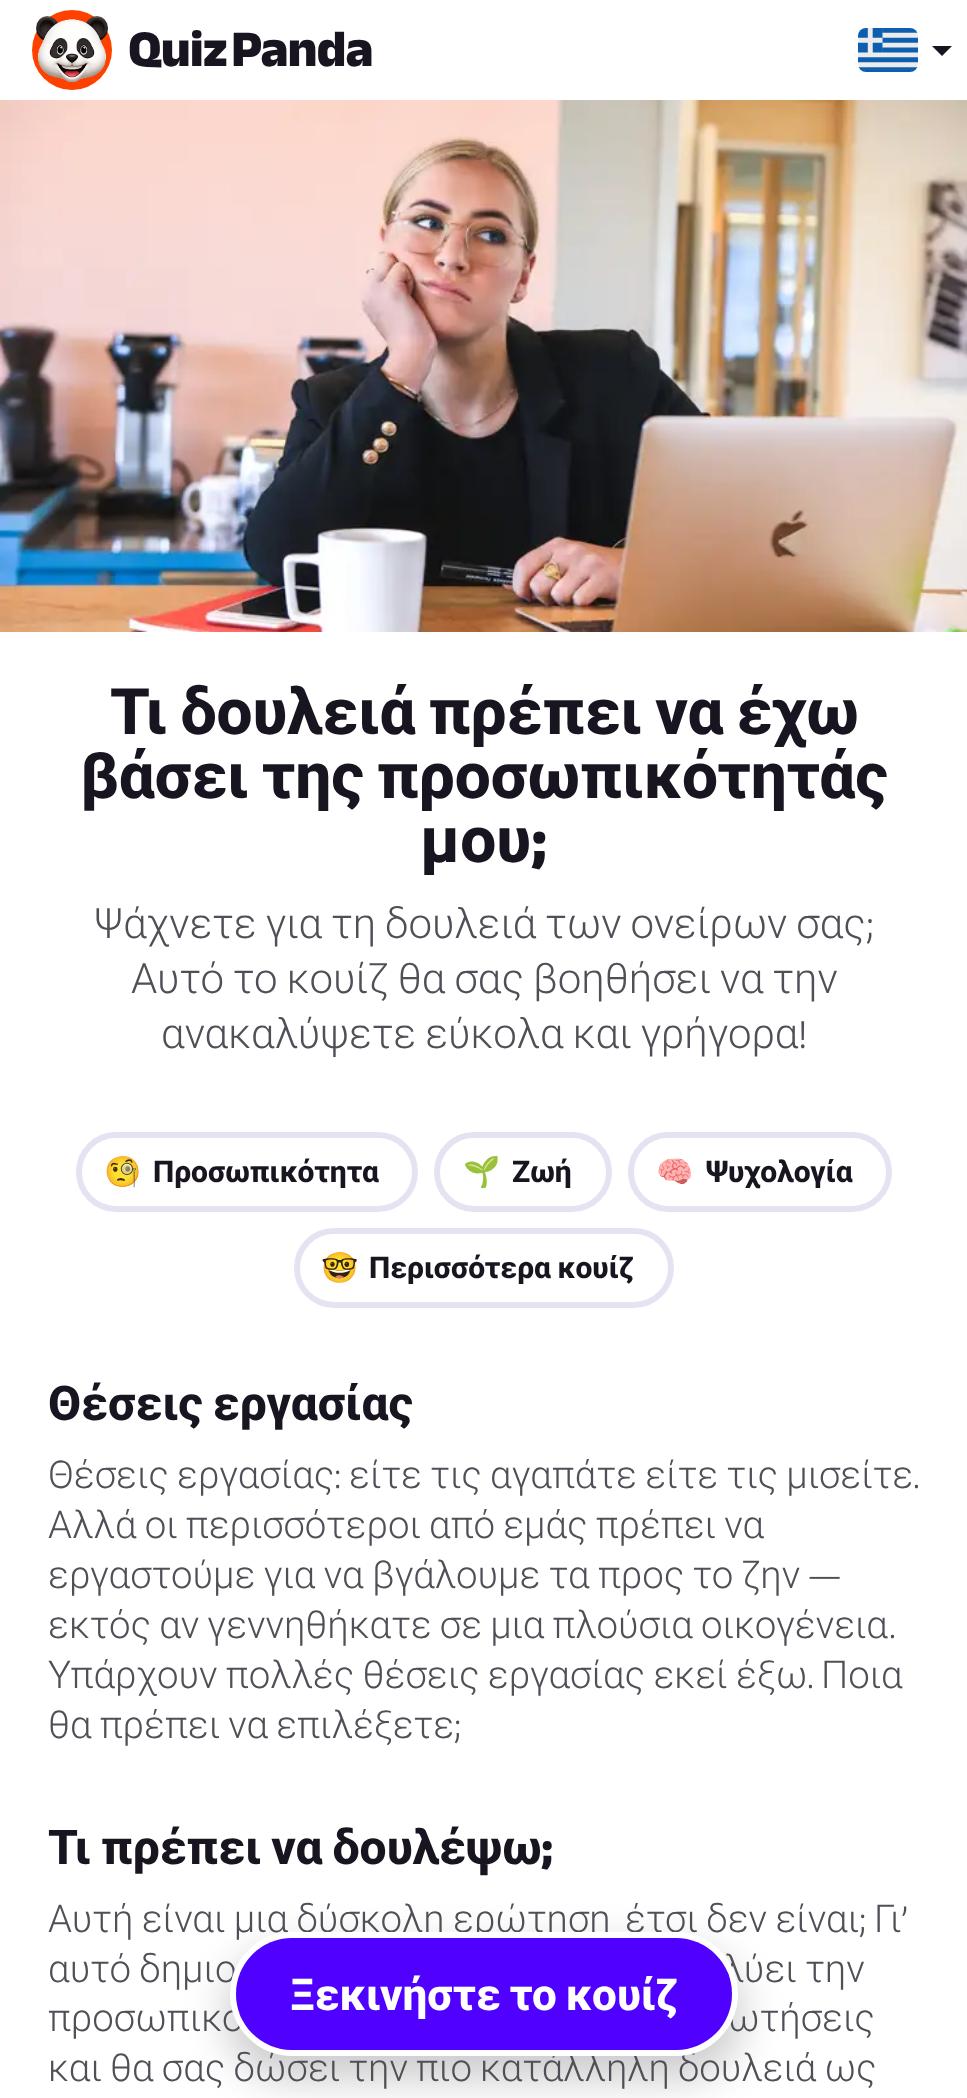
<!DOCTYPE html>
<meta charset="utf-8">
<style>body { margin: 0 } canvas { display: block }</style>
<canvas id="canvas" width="967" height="2098"></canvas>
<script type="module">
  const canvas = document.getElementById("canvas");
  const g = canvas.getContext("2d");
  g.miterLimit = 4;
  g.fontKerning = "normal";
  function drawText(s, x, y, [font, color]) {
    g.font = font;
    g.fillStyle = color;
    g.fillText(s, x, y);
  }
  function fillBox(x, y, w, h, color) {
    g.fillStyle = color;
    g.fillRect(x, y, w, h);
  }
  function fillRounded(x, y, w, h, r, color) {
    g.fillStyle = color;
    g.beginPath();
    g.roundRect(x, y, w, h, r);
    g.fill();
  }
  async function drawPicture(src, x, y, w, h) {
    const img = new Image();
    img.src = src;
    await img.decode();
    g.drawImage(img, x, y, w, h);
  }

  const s1 = ["800 52px Anek Latin", "#181420"];
  const s2 = ["800 64px Roboto", "#181420"];
  const s3 = ["800 64px Anek Latin", "#181420"];
  const s4 = ["300 42px Roboto", "#504F57"];
  const s5 = ["300 42px Anek Latin", "#504F57"];
  const s6 = ["300 38.4px Roboto", "#504F57"];
  const s7 = ["800 44px Roboto", "#FFFFFF"];
  const s8 = ["bold 30px Noto Color Emoji", "#181420"];
  const s9 = ["800 30px Roboto", "#181420"];
  const s10 = ["800 48px Roboto", "#181420"];
  const s11 = ["300 38.4px Anek Latin", "#504F57"];
  const s12 = ["800 48px Anek Latin", "#181420"];

  fillBox(0, 0, 967, 2098, "#FFFFFF");
  g.fillStyle = "#FF4100";
  g.beginPath();
  g.arc(72, 50, 40, 0, Math.PI * 2);
  g.fill();
  await drawPicture("pic1.png", 36, 16, 72, 67);
  g.letterSpacing = "-1px";
  drawText("Quiz", 128, 66, s1);
  drawText("Panda", 231, 66, s1);
  await drawPicture("pic2.png", 858, 28, 60, 44);
  g.beginPath();
  g.moveTo(932, 46);
  g.lineTo(952, 46);
  g.lineTo(942, 56);
  g.closePath();
  g.fill();
  await drawPicture("pic3.png", 0, 100, 967, 532);
  g.letterSpacing = "0px";
  g.wordSpacing = "-3px";
  drawText("Τι δουλειά πρέπει να έχω", 110, 734, s2);
  drawText("βάσει της προσωπικότητάς", 80, 798, s2);
  g.wordSpacing = "0px";
  drawText("μου", 420, 862, s2);
  drawText(";", 531, 862, s3);
  g.wordSpacing = "-1.25px";
  drawText("Ψάχνετε για τη δουλειά των ονείρων σας", 94, 938, s4);
  g.wordSpacing = "0px";
  drawText(";", 866, 938, s5);
  g.wordSpacing = "-1.25px";
  drawText("Αυτό το κουίζ θα σας βοηθήσει να την", 131, 993, s4);
  drawText("ανακαλύψετε εύκολα και γρήγορα", 161, 1048, s4);
  g.wordSpacing = "0px";
  drawText("!", 798, 1048, s5);
  g.fillStyle = "rgba(0, 0, 0, 0.2)";
  g.filter = "blur(20px)";
  g.beginPath();
  g.roundRect(226, 1948, 516, 132, 66);
  g.fill();
  g.filter = "none";
  g.wordSpacing = "-1px";
  drawText("Αυτή είναι μια δύσκολη ερώτηση", 48, 1932, s6);
  drawText("έτσι δεν είναι", 625, 1932, s6);
  drawText("αυτό δημιο", 48, 1982, s6);
  drawText("λύει την", 723, 1982, s6);
  g.wordSpacing = "-1.25px";
  drawText("προσωπικό", 48, 2031, s6);
  drawText("ωτήσεις", 728, 2031, s6);
  drawText("και θα σας δώσει την πιο κατάλληλη δουλειά ως", 48, 2081, s6);
  g.beginPath();
  g.roundRect(233, 1935, 502, 118, 59);
  g.strokeStyle = "#FFFFFF";
  g.lineWidth = 6;
  g.stroke();
  fillRounded(236, 1938, 496, 112, 56, "#5000FF");
  g.wordSpacing = "-2px";
  drawText("Ξεκινήστε το κουίζ", 290, 2010, s7);
  g.beginPath();
  g.roundRect(79, 1135, 336, 74, 37);
  g.strokeStyle = "#E3E3F2";
  g.stroke();
  g.wordSpacing = "0px";
  drawText("🧐", 104, 1182, s8);
  drawText("Προσωπικότητα", 153, 1182, s9);
  g.beginPath();
  g.roundRect(437, 1135, 172, 74, 37);
  g.stroke();
  drawText("🌱", 463, 1182, s8);
  drawText("Ζωή", 512, 1182, s9);
  g.beginPath();
  g.roundRect(631, 1135, 258, 74, 37);
  g.stroke();
  drawText("🧠", 656, 1182, s8);
  drawText("Ψυχολογία", 706, 1182, s9);
  g.beginPath();
  g.roundRect(297, 1231, 374, 74, 37);
  g.stroke();
  drawText("🤓", 321, 1278, s8);
  g.wordSpacing = "-1px";
  drawText("Περισσότερα κουίζ", 369, 1278, s9);
  g.wordSpacing = "-2px";
  drawText("Θέσεις εργασίας", 48, 1420, s10);
  g.wordSpacing = "-1px";
  drawText("Θέσεις εργασίας", 48, 1488, s6);
  g.wordSpacing = "0px";
  drawText(":", 334, 1488, s11);
  g.wordSpacing = "-1px";
  drawText("είτε τις αγαπάτε είτε τις μισείτε", 349, 1488, s6);
  g.wordSpacing = "0px";
  drawText(".", 913, 1488, s11);
  g.wordSpacing = "-1.25px";
  drawText("Αλλά οι περισσότεροι από εμάς πρέπει να", 48, 1538, s6);
  g.wordSpacing = "-1px";
  drawText("εργαστούμε για να βγάλουμε τα προς το ζην", 48, 1588, s6);
  g.wordSpacing = "0px";
  drawText("—", 807, 1588, s11);
  g.wordSpacing = "-1.25px";
  drawText("εκτός αν γεννηθήκατε σε μια πλούσια οικογένεια", 48, 1638, s6);
  g.wordSpacing = "0px";
  drawText(".", 889, 1638, s11);
  g.wordSpacing = "-1px";
  drawText("Υπάρχουν πολλές θέσεις εργασίας εκεί έξω", 48, 1688, s6);
  g.wordSpacing = "0px";
  drawText(".", 807, 1688, s11);
  drawText("Ποια", 821, 1688, s6);
  g.wordSpacing = "-1.25px";
  drawText("θα πρέπει να επιλέξετε", 48, 1738, s6);
  g.wordSpacing = "0px";
  drawText(";", 454, 1738, s11);
  g.wordSpacing = "-2px";
  drawText("Τι πρέπει να δουλέψω", 48, 1864, s10);
  g.wordSpacing = "0px";
  drawText(";", 541, 1864, s12);
  drawText("Γι", 874, 1932, s6);
  drawText("’", 901, 1932, s11);
  drawText(";", 859, 1932, s11);
</script>
